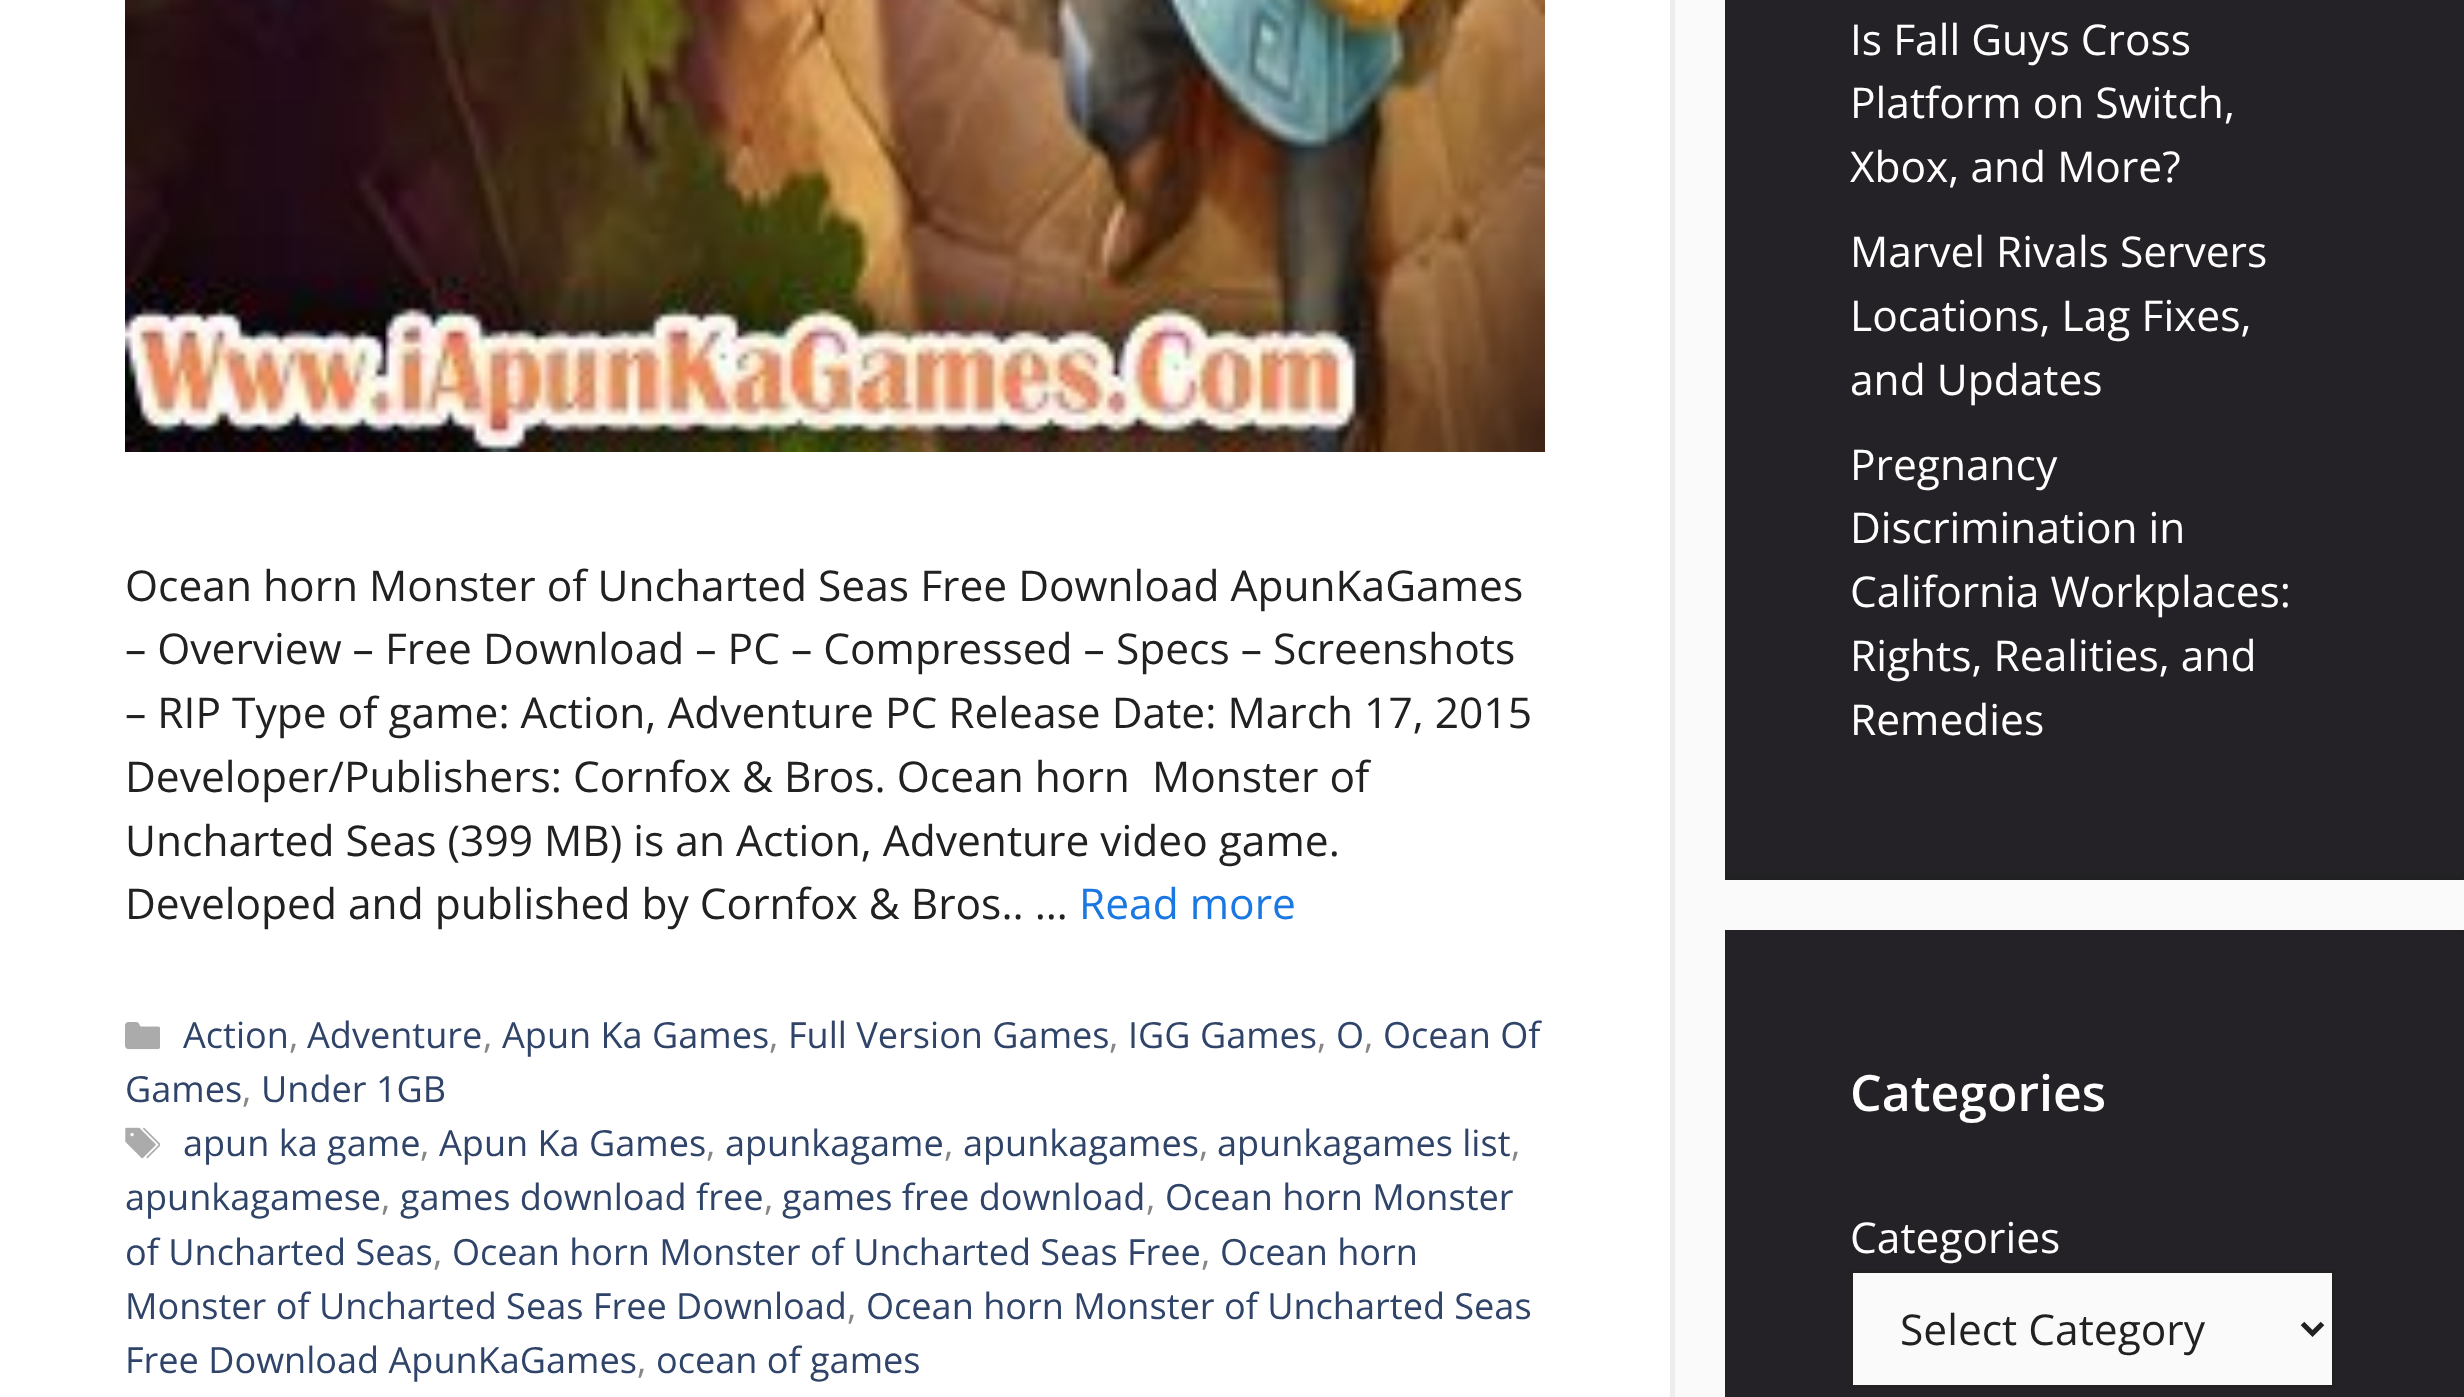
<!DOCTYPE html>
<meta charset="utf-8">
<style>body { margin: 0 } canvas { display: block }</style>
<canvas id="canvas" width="2464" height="1397"></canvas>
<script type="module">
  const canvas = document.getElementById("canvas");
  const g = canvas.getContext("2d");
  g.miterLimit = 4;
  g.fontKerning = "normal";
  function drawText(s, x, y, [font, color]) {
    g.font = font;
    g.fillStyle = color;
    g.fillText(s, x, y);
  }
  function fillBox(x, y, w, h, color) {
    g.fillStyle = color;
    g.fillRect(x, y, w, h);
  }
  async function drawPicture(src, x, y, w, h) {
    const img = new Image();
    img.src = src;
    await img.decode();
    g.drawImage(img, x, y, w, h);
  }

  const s1 = ["42.5px Open Sans", "#212121"];
  const s2 = ["42.5px Open Sans", "#1B78E2"];
  const s3 = ["36.1px Open Sans", "#2F4468"];
  const s4 = ["36.1px Open Sans", "#878787"];
  const s5 = ["42.5px Open Sans", "#FFFFFF"];
  const s6 = ["600 50px Open Sans", "#FFFFFF"];

  fillBox(0, 0, 2464, 1397, "#FAFAFA");
  fillBox(0, 0, 1670, 1397, "#FFFFFF");
  g.fillStyle = "#EDEDED";
  g.beginPath();
  g.moveTo(1675, -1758);
  g.lineTo(1675, 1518);
  g.lineTo(1670, 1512);
  g.lineTo(1670, -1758);
  g.closePath();
  g.fill();
  await drawPicture("pic1.png", 125, 0, 1420, 452);
  drawText("Ocean horn Monster of Uncharted Seas Free Download ApunKaGames", 125, 601, s1);
  drawText("– Overview – Free Download – PC – Compressed – Specs – Screenshots", 125, 664, s1);
  drawText("– RIP Type of game: Action, Adventure PC Release Date: March 17, 2015", 125, 728, s1);
  drawText("Developer/Publishers: Cornfox & Bros. Ocean horn  Monster of", 125, 792, s1);
  drawText("Uncharted Seas (399 MB) is an Action, Adventure video game.", 125, 856, s1);
  drawText("Developed and published by Cornfox & Bros.. …", 125, 919, s1);
  drawText("Read more", 1079, 919, s2);
  await drawPicture("pic2.png", 125, 1022, 35, 28);
  drawText("Action", 183, 1048, s3);
  drawText(",", 289, 1048, s4);
  drawText("Adventure", 307, 1048, s3);
  drawText(",", 483, 1048, s4);
  drawText("Apun Ka Games", 502, 1048, s3);
  drawText(",", 769, 1048, s4);
  drawText("Full Version Games", 788, 1048, s3);
  drawText(",", 1109, 1048, s4);
  drawText("IGG Games", 1128, 1048, s3);
  drawText(",", 1317, 1048, s4);
  drawText("O", 1336, 1048, s3);
  drawText(",", 1364, 1048, s4);
  drawText("Ocean Of", 1383, 1048, s3);
  drawText("Games", 125, 1102, s3);
  drawText(",", 242, 1102, s4);
  drawText("Under 1GB", 261, 1102, s3);
  await drawPicture("pic3.png", 125, 1127, 35, 32);
  drawText("apun ka game", 183, 1156, s3);
  drawText(",", 420, 1156, s4);
  drawText("Apun Ka Games", 439, 1156, s3);
  drawText(",", 706, 1156, s4);
  drawText("apunkagame", 725, 1156, s3);
  drawText(",", 944, 1156, s4);
  drawText("apunkagames", 963, 1156, s3);
  drawText(",", 1199, 1156, s4);
  drawText("apunkagames list", 1217, 1156, s3);
  drawText(",", 1511, 1156, s4);
  drawText("apunkagamese", 125, 1210, s3);
  drawText(",", 381, 1210, s4);
  drawText("games download free", 400, 1210, s3);
  drawText(",", 764, 1210, s4);
  drawText("games free download", 782, 1210, s3);
  drawText(",", 1146, 1210, s4);
  drawText("Ocean horn Monster", 1165, 1210, s3);
  drawText("of Uncharted Seas", 125, 1265, s3);
  drawText(",", 433, 1265, s4);
  drawText("Ocean horn Monster of Uncharted Seas Free", 452, 1265, s3);
  drawText(",", 1201, 1265, s4);
  drawText("Ocean horn", 1220, 1265, s3);
  drawText("Monster of Uncharted Seas Free Download", 125, 1319, s3);
  drawText(",", 847, 1319, s4);
  drawText("Ocean horn Monster of Uncharted Seas", 866, 1319, s3);
  drawText("Free Download ApunKaGames", 125, 1373, s3);
  drawText(",", 637, 1373, s4);
  drawText("ocean of games", 656, 1373, s3);
  fillBox(1725, 0, 739, 879, "#242226");
  g.fillStyle = "#212023";
  g.beginPath();
  g.moveTo(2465, -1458);
  g.lineTo(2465, 880);
  g.lineTo(2460, 875);
  g.lineTo(2460, -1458);
  g.closePath();
  g.fill();
  g.beginPath();
  g.moveTo(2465, 880);
  g.lineTo(1725, 880);
  g.lineTo(1725, 875);
  g.lineTo(2460, 875);
  g.closePath();
  g.fill();
  drawText("Is Fall Guys Cross", 1850, 55, s5);
  drawText("Platform on Switch,", 1850, 118, s5);
  drawText("Xbox, and More?", 1850, 182, s5);
  drawText("Marvel Rivals Servers", 1850, 267, s5);
  drawText("Locations, Lag Fixes,", 1850, 331, s5);
  drawText("and Updates", 1850, 395, s5);
  drawText("Pregnancy", 1850, 480, s5);
  drawText("Discrimination in", 1850, 543, s5);
  drawText("California Workplaces:", 1850, 607, s5);
  drawText("Rights, Realities, and", 1850, 671, s5);
  drawText("Remedies", 1850, 735, s5);
  fillBox(1725, 930, 735, 467, "#242226");
  g.fillStyle = "#212023";
  g.beginPath();
  g.moveTo(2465, 930);
  g.lineTo(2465, 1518);
  g.lineTo(2460, 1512);
  g.lineTo(2460, 930);
  g.closePath();
  g.fill();
  drawText("Categories", 1850, 1111, s6);
  drawText("Categories", 1850, 1253, s5);
  g.fillStyle = "#FAFAFA";
  g.beginPath();
  g.rect(1851.5, 1271.5, 482, 115);
  g.fill();
  g.strokeStyle = "#212121";
  g.lineWidth = 3;
  g.stroke();
  g.beginPath();
  g.moveTo(2302.5, 1323.5);
  g.lineTo(2312.5, 1333.5);
  g.lineTo(2322.5, 1323.5);
  g.lineWidth = 5;
  g.stroke();
  drawText("Select Category", 1900, 1345, s1);
</script>
